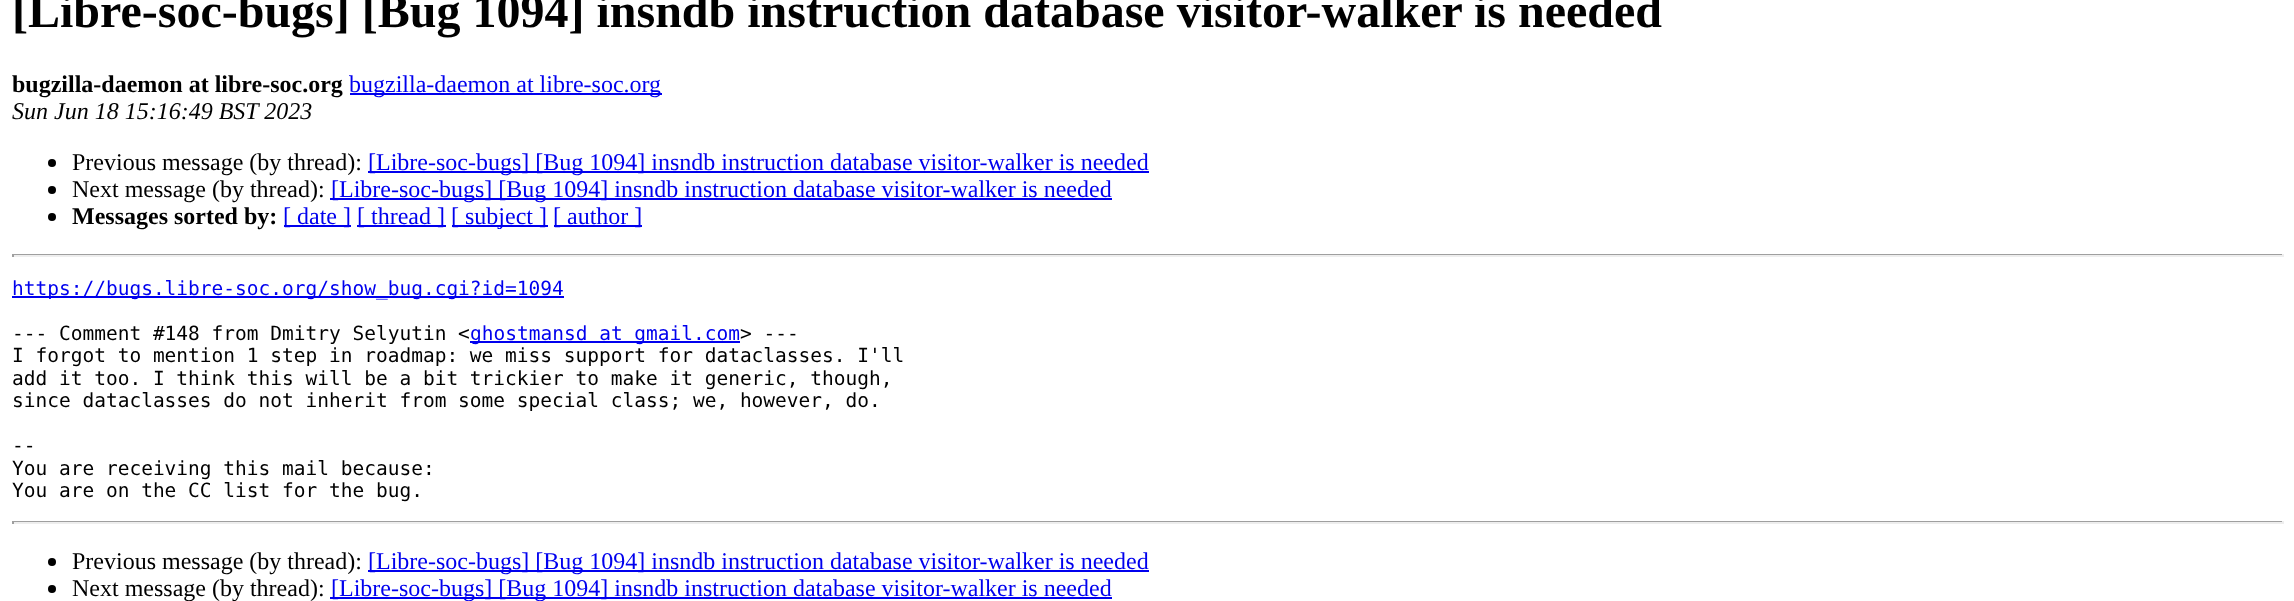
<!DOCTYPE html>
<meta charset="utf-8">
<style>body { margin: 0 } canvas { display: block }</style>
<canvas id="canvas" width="2294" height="601"></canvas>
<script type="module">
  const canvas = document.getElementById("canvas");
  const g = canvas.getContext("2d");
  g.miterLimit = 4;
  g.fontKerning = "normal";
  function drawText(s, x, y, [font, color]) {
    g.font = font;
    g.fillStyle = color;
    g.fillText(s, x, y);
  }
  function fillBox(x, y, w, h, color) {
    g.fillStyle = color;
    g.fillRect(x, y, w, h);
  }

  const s1 = ["bold 48px Liberation Serif", "#000000"];
  const s2 = ["bold 24px Liberation Serif", "#000000"];
  const s3 = ["24px Liberation Serif", "#0000EE"];
  const s4 = ["italic 24px Liberation Serif", "#000000"];
  const s5 = ["24px Liberation Serif", "#000000"];
  const s6 = ["19.5px DejaVu Sans Mono", "#0000EE"];
  const s7 = ["19.5px DejaVu Sans Mono", "#000000"];

  fillBox(0, 0, 2294, 601, "#FFFFFF");
  drawText("[Libre-soc-bugs] [Bug 1094] insndb instruction database visitor-walker is needed", 12, 27, s1);
  drawText("bugzilla-daemon at libre-soc.org", 12, 92, s2);
  fillBox(350, 93, 312, 2, "#0000EE");
  drawText("bugzilla-daemon at libre-soc.org", 349, 92, s3);
  drawText("Sun Jun 18 15:16:49 BST 2023", 12, 119, s4);
  g.beginPath();
  g.arc(52, 163, 4, 0, Math.PI * 2);
  g.fill();
  drawText("Previous message (by thread):", 72, 170, s5);
  fillBox(368, 171, 781, 2, "#0000EE");
  drawText("[Libre-soc-bugs] [Bug 1094] insndb instruction database visitor-walker is needed", 368, 170, s3);
  g.fillStyle = "#000000";
  g.beginPath();
  g.arc(52, 190, 4, 0, Math.PI * 2);
  g.fill();
  drawText("Next message (by thread):", 72, 197, s5);
  fillBox(330, 198, 782, 2, "#0000EE");
  drawText("[Libre-soc-bugs] [Bug 1094] insndb instruction database visitor-walker is needed", 331, 197, s3);
  g.fillStyle = "#000000";
  g.beginPath();
  g.arc(52, 217, 4, 0, Math.PI * 2);
  g.fill();
  drawText("Messages sorted by:", 72, 224, s2);
  fillBox(284, 225, 67, 2, "#0000EE");
  drawText("[ date ]", 283, 224, s3);
  fillBox(357, 225, 89, 2, "#0000EE");
  drawText("[ thread ]", 357, 224, s3);
  fillBox(452, 225, 96, 2, "#0000EE");
  drawText("[ subject ]", 451, 224, s3);
  fillBox(554, 225, 88, 2, "#0000EE");
  drawText("[ author ]", 553, 224, s3);
  fillBox(12, 254, 2271, 1, "#9F9F9F");
  fillBox(2282, 254, 2, 3, "#EEEEEE");
  fillBox(12, 255, 2271, 2, "#EEEEEE");
  fillBox(12, 254, 2, 3, "#9F9F9F");
  fillBox(12, 296, 552, 2, "#0000EE");
  drawText("https://bugs.libre-soc.org/show_bug.cgi?id=1094", 12, 295, s6);
  drawText("--- Comment #148 from Dmitry Selyutin <", 12, 340, s7);
  fillBox(470, 341, 270, 2, "#0000EE");
  drawText("ghostmansd at gmail.com", 470, 340, s6);
  drawText("> ---", 740, 340, s7);
  drawText("I forgot to mention 1 step in roadmap: we miss support for dataclasses. I'll", 12, 362, s7);
  drawText("add it too. I think this will be a bit trickier to make it generic, though,", 12, 385, s7);
  drawText("since dataclasses do not inherit from some special class; we, however, do.", 12, 407, s7);
  drawText("--", 12, 452, s7);
  drawText("You are receiving this mail because:", 12, 475, s7);
  drawText("You are on the CC list for the bug.", 12, 497, s7);
  fillBox(12, 521, 2271, 1, "#9F9F9F");
  fillBox(2282, 521, 2, 3, "#EEEEEE");
  fillBox(12, 522, 2271, 2, "#EEEEEE");
  fillBox(12, 521, 2, 3, "#9F9F9F");
  g.fillStyle = "#000000";
  g.beginPath();
  g.arc(52, 562, 4, 0, Math.PI * 2);
  g.fill();
  drawText("Previous message (by thread):", 72, 569, s5);
  fillBox(368, 570, 781, 2, "#0000EE");
  drawText("[Libre-soc-bugs] [Bug 1094] insndb instruction database visitor-walker is needed", 368, 569, s3);
  g.fillStyle = "#000000";
  g.beginPath();
  g.arc(52, 589, 4, 0, Math.PI * 2);
  g.fill();
  drawText("Next message (by thread):", 72, 596, s5);
  fillBox(330, 597, 782, 2, "#0000EE");
  drawText("[Libre-soc-bugs] [Bug 1094] insndb instruction database visitor-walker is needed", 331, 596, s3);
</script>
